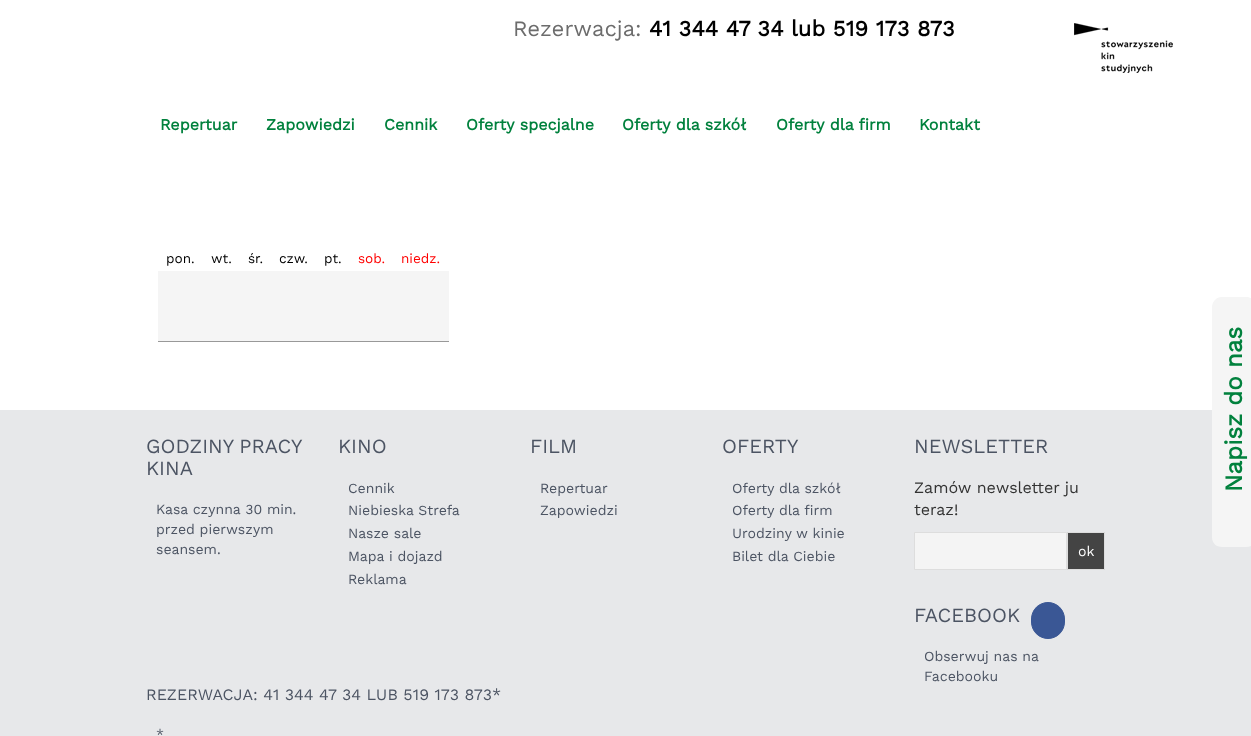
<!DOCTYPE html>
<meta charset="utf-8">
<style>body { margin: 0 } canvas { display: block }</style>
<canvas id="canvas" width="1251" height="736"></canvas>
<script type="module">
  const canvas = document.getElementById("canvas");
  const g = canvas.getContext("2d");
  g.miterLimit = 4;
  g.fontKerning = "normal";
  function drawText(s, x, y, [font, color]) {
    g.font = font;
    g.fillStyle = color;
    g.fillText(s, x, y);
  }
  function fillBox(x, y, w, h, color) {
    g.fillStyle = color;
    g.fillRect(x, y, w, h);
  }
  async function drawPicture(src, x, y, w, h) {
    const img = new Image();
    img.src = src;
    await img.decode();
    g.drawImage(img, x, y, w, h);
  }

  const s1 = ["22px Work Sans", "#6C6C6C"];
  const s2 = ["bold 22px Work Sans", "#000000"];
  const s3 = ["bold 16px Work Sans", "#01813D"];
  const s4 = ["13.5px Work Sans", "#000000"];
  const s5 = ["13.5px Work Sans", "#FF0000"];
  const s6 = ["20px Work Sans", "#4C5463"];
  const s7 = ["14px Work Sans", "#4C5463"];
  const s8 = ["16px Work Sans", "#333333"];
  const s9 = ["14px Work Sans", "#FFFFFF"];
  const s10 = ["16px Work Sans", "#4C5463"];

  fillBox(0, 0, 1251, 736, "#FFFFFF");
  drawText("Rezerwacja:", 513, 36, s1);
  drawText("41 344 47 34 lub 519 173 873", 649, 36, s2);
  await drawPicture("pic1.png", 1074, 23, 99, 50);
  drawText("Repertuar", 160, 130, s3);
  drawText("Zapowiedzi", 266, 130, s3);
  drawText("Cennik", 384, 130, s3);
  drawText("Oferty specjalne", 466, 130, s3);
  drawText("Oferty dla szkół", 622, 130, s3);
  drawText("Oferty dla firm", 776, 130, s3);
  drawText("Kontakt", 919, 130, s3);
  fillBox(0, 410, 1251, 326, "#E7E8EA");
  g.fillStyle = "#F5F5F5";
  g.beginPath();
  g.moveTo(1212, 537);
  g.lineTo(1212, 307);
  g.bezierCurveTo(1212, 302, 1216, 297, 1222, 297);
  g.lineTo(1246, 297);
  g.bezierCurveTo(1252, 297, 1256, 302, 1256, 307);
  g.lineTo(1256, 537);
  g.bezierCurveTo(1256, 543, 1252, 547, 1246, 547);
  g.lineTo(1222, 547);
  g.bezierCurveTo(1216, 547, 1212, 543, 1212, 537);
  g.closePath();
  g.fill();
  g.font = "bold 24px Work Sans";
  g.fillStyle = "#01813D";
  g.save();
  g.translate(1242, 492);
  g.rotate(-90 * Math.PI / 180);
  g.fillText("Napisz do nas", 0, 0);
  g.restore();
  fillBox(158, 341, 291, 1, "#999999");
  fillBox(158, 271, 291, 70, "#F5F5F5");
  drawText("pon.", 166, 263, s4);
  drawText("wt.", 211, 263, s4);
  drawText("śr.", 248, 263, s4);
  drawText("czw.", 279, 263, s4);
  drawText("pt.", 324, 263, s4);
  drawText("sob.", 358, 263, s5);
  drawText("niedz.", 401, 263, s5);
  g.wordSpacing = "-1px";
  drawText("GODZINY PRACY", 146, 453, s6);
  g.wordSpacing = "0px";
  drawText("KINA", 146, 475, s6);
  drawText("Kasa czynna 30 min.", 156, 514, s7);
  drawText("przed pierwszym", 156, 534, s7);
  drawText("seansem.", 156, 554, s7);
  drawText("KINO", 338, 453, s6);
  drawText("Cennik", 348, 493, s7);
  drawText("Niebieska Strefa", 348, 515, s7);
  drawText("Nasze sale", 348, 538, s7);
  drawText("Mapa i dojazd", 348, 561, s7);
  drawText("Reklama", 348, 584, s7);
  drawText("FILM", 530, 453, s6);
  drawText("Repertuar", 540, 493, s7);
  drawText("Zapowiedzi", 540, 515, s7);
  drawText("OFERTY", 722, 453, s6);
  drawText("Oferty dla szkół", 732, 493, s7);
  drawText("Oferty dla firm", 732, 515, s7);
  drawText("Urodziny w kinie", 732, 538, s7);
  drawText("Bilet dla Ciebie", 732, 561, s7);
  drawText("NEWSLETTER", 914, 453, s6);
  drawText("Zamów newsletter ju", 914, 493, s8);
  drawText("teraz!", 914, 515, s8);
  g.fillStyle = "#F4F4F4";
  g.beginPath();
  g.rect(914.5, 532.5, 152, 37);
  g.fill();
  g.strokeStyle = "#DDDDDD";
  g.stroke();
  g.fillStyle = "#444444";
  g.beginPath();
  g.rect(1067.5, 532.5, 37, 37);
  g.fill();
  g.stroke();
  drawText("ok", 1078, 556, s9);
  drawText("FACEBOOK", 914, 622, s6);
  g.fillStyle = "#3A5795";
  g.beginPath();
  g.roundRect(1031.5, 602.5, 33, 36, 16.5);
  g.fill();
  g.strokeStyle = "#3A5795";
  g.stroke();
  drawText("Obserwuj nas na", 924, 661, s7);
  drawText("Facebooku", 924, 681, s7);
  drawText("REZERWACJA: 41 344 47 34 LUB 519 173 873*", 146, 700, s10);
  drawText("*", 156, 739, s7);
</script>
